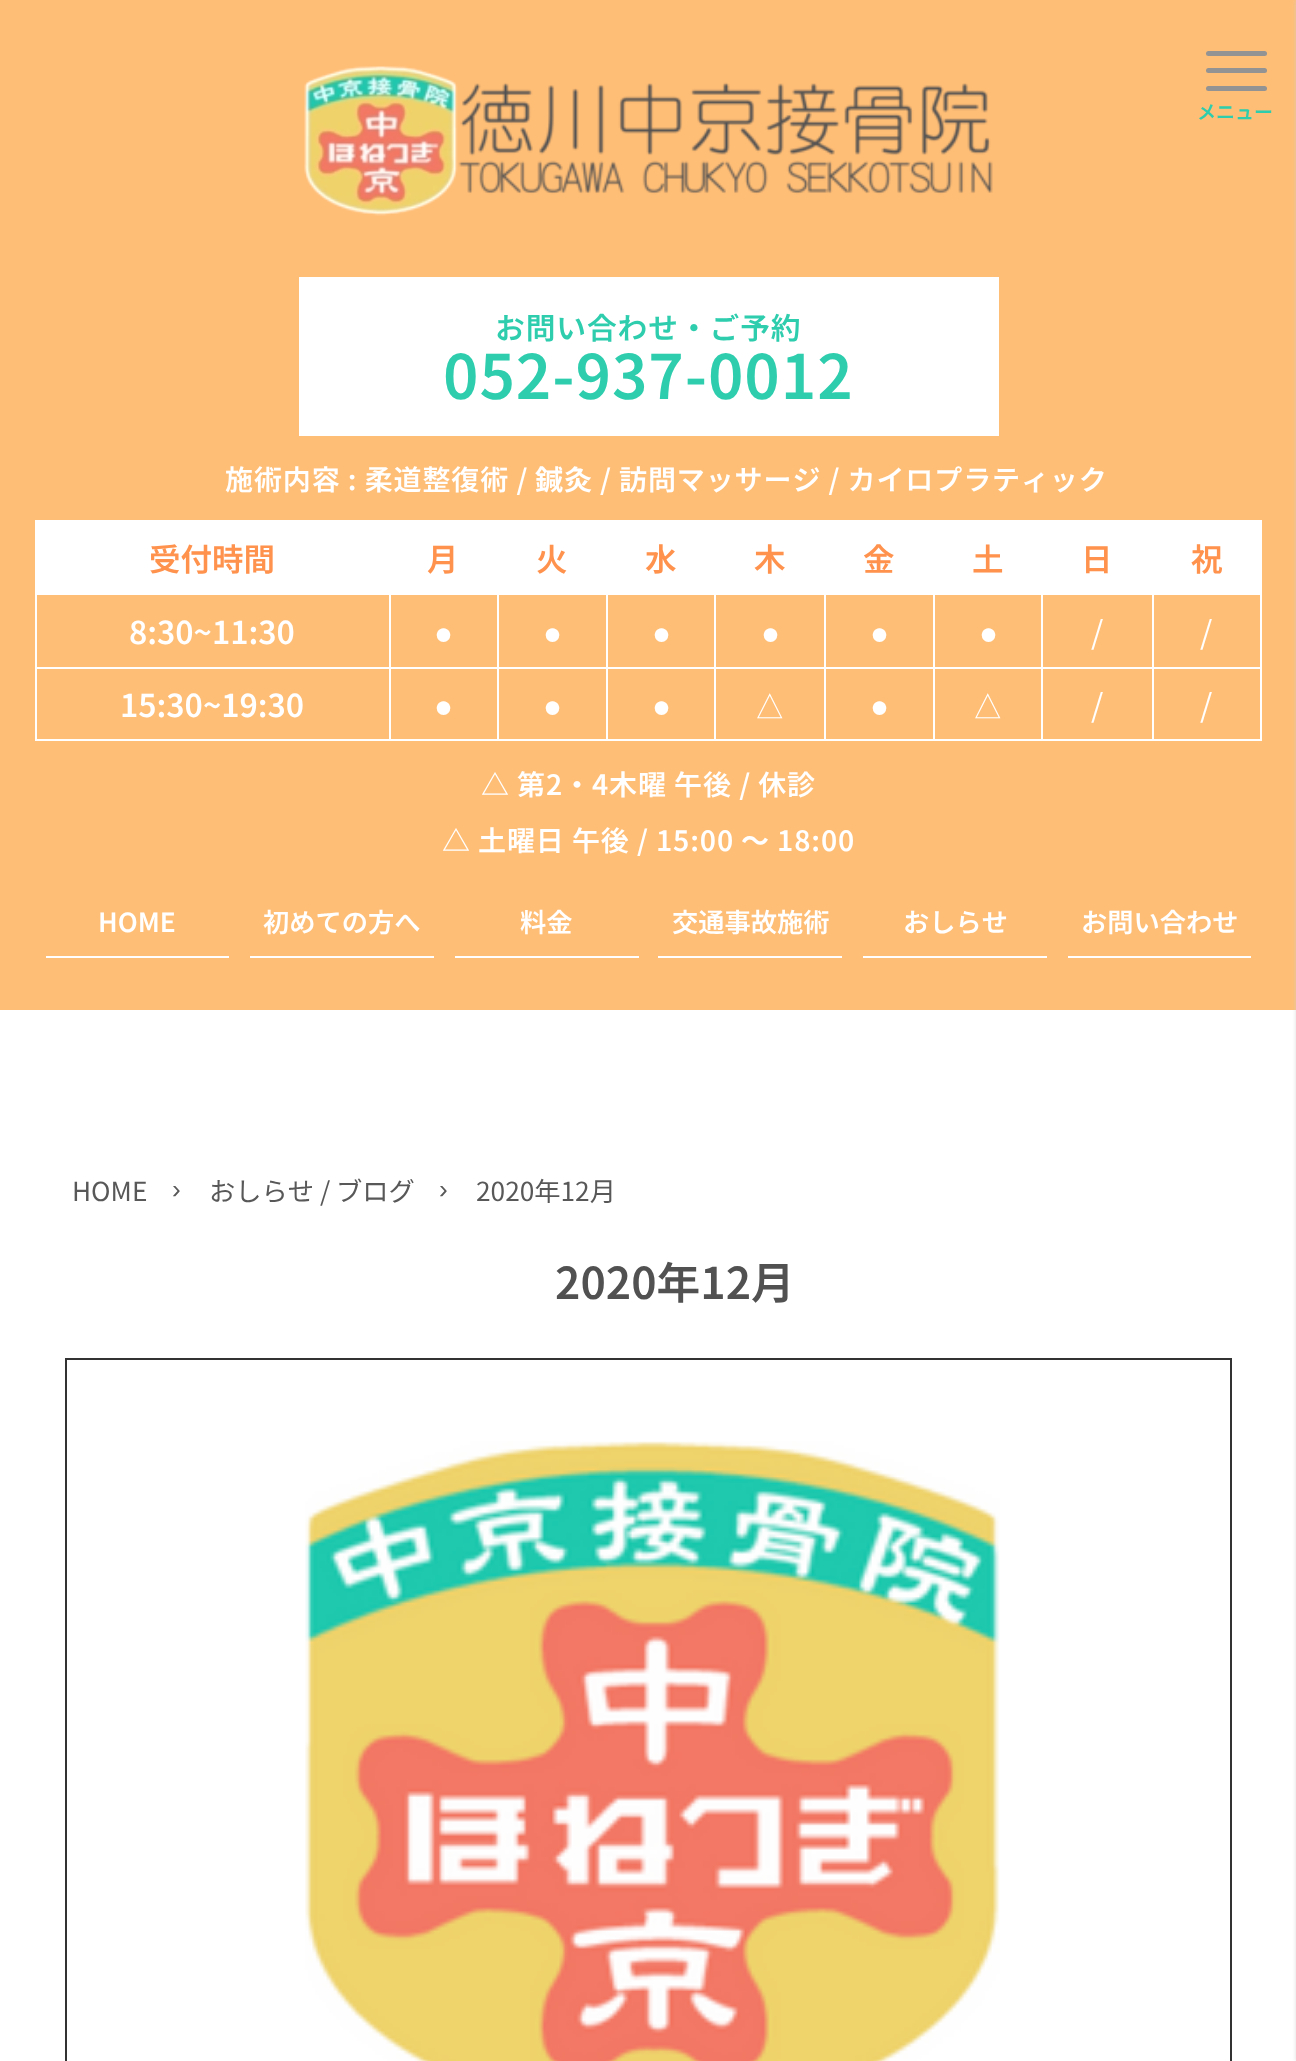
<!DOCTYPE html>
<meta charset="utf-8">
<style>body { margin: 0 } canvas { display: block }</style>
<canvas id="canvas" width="1296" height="2061"></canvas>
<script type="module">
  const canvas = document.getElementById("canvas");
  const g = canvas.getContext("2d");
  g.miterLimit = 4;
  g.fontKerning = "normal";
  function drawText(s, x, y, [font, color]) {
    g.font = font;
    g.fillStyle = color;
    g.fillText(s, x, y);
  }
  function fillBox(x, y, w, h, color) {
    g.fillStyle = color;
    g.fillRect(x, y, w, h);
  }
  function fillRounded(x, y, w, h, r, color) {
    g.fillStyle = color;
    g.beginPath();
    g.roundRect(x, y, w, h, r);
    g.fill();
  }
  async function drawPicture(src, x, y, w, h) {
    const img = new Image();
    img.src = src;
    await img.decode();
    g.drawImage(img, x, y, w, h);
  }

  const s1 = ["600 19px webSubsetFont", "#2DCDAE"];
  const s2 = ["600 28px webSubsetFont", "#FFFFFF"];
  const s3 = ["bold 28px Noto Sans JP", "#FFFFFF"];
  const s4 = ["600 31.5px webSubsetFont", "#FF924D"];
  const s5 = ["600 31.5px webSubsetFont", "#FFFFFF"];
  const s6 = ["31.5px Liberation Sans", "#FFFFFF"];
  const s7 = ["31.5px webSubsetFont", "#FFFFFF"];
  const s8 = ["500 31.5px WenQuanYi Zen Hei", "#FFFFFF"];
  const s9 = ["600 26.25px webSubsetFont", "#FFFFFF"];
  const s10 = ["600 29.75px webSubsetFont", "#2DCDAE"];
  const s11 = ["600 61.25px webSubsetFont", "#2DCDAE"];
  const s12 = ["26.25px webSubsetFont", "#585858"];
  const s13 = ["26.25px Liberation Sans", "#585858"];
  const s14 = ["600 43.75px webSubsetFont", "#515151"];

  fillBox(0, 0, 1296, 2061, "#FFFFFF");
  fillBox(0, 0, 1296, 1010, "#FFBE76");
  fillRounded(1206, 68, 61, 5, 2.5, "#939393");
  fillRounded(1206, 51, 61, 5, 2.5, "#939393");
  fillRounded(1206, 86, 61, 5, 2.5, "#939393");
  drawText("メニュー", 1197, 119, s1);
  g.fillStyle = "#CCCCCC";
  g.filter = "blur(2.5px)";
  g.beginPath();
  g.rect(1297, 0, 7, 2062);
  g.fill();
  g.filter = "none";
  g.letterSpacing = "0.9px";
  drawText("施術内容 : 柔道整復術 /", 225, 490, s2);
  drawText("鍼灸", 535, 490, s3);
  drawText("/ 訪問マッサージ / カイロプラティック", 600, 490, s2);
  fillBox(37, 522, 1225, 71, "#FFFFFF");
  fillBox(35, 520, 1227, 2, "#FFFFFF");
  fillBox(1152, 593, 110, 2, "#FFFFFF");
  fillBox(1152, 667, 110, 2, "#FFFFFF");
  fillBox(1260, 667, 2, 73, "#FFFFFF");
  fillBox(1152, 739, 110, 2, "#FFFFFF");
  fillBox(1152, 667, 2, 73, "#FFFFFF");
  fillBox(1041, 667, 112, 2, "#FFFFFF");
  fillBox(1152, 593, 2, 76, "#FFFFFF");
  fillBox(1041, 593, 112, 2, "#FFFFFF");
  fillBox(1041, 739, 112, 2, "#FFFFFF");
  fillBox(1041, 667, 2, 73, "#FFFFFF");
  fillBox(933, 667, 110, 2, "#FFFFFF");
  fillBox(1041, 593, 2, 76, "#FFFFFF");
  fillBox(933, 593, 110, 2, "#FFFFFF");
  fillBox(933, 739, 110, 2, "#FFFFFF");
  fillBox(933, 667, 2, 73, "#FFFFFF");
  fillBox(824, 667, 111, 2, "#FFFFFF");
  fillBox(933, 593, 2, 76, "#FFFFFF");
  fillBox(824, 593, 111, 2, "#FFFFFF");
  fillBox(824, 739, 111, 2, "#FFFFFF");
  fillBox(824, 667, 2, 73, "#FFFFFF");
  fillBox(714, 667, 112, 2, "#FFFFFF");
  fillBox(824, 593, 2, 76, "#FFFFFF");
  fillBox(714, 593, 112, 2, "#FFFFFF");
  fillBox(714, 739, 112, 2, "#FFFFFF");
  fillBox(714, 667, 2, 73, "#FFFFFF");
  fillBox(606, 667, 110, 2, "#FFFFFF");
  fillBox(714, 593, 2, 76, "#FFFFFF");
  fillBox(606, 593, 110, 2, "#FFFFFF");
  fillBox(606, 739, 110, 2, "#FFFFFF");
  fillBox(606, 667, 2, 73, "#FFFFFF");
  fillBox(497, 667, 110, 2, "#FFFFFF");
  fillBox(606, 593, 2, 76, "#FFFFFF");
  fillBox(497, 593, 110, 2, "#FFFFFF");
  fillBox(497, 739, 110, 2, "#FFFFFF");
  fillBox(497, 667, 2, 73, "#FFFFFF");
  fillBox(389, 667, 110, 2, "#FFFFFF");
  fillBox(497, 593, 2, 76, "#FFFFFF");
  fillBox(389, 593, 110, 2, "#FFFFFF");
  fillBox(389, 739, 110, 2, "#FFFFFF");
  fillBox(389, 667, 2, 73, "#FFFFFF");
  fillBox(35, 667, 355, 2, "#FFFFFF");
  fillBox(389, 593, 2, 76, "#FFFFFF");
  fillBox(35, 593, 355, 2, "#FFFFFF");
  fillBox(35, 739, 355, 2, "#FFFFFF");
  fillBox(35, 667, 2, 73, "#FFFFFF");
  fillBox(35, 593, 2, 76, "#FFFFFF");
  fillBox(35, 520, 2, 75, "#FFFFFF");
  g.letterSpacing = "0px";
  drawText("受付時間", 149, 571, s4);
  drawText("月", 427, 571, s4);
  drawText("火", 536, 571, s4);
  drawText("水", 645, 571, s4);
  drawText("木", 754, 571, s4);
  drawText("金", 863, 571, s4);
  drawText("土", 972, 571, s4);
  drawText("日", 1081, 571, s4);
  drawText("祝", 1191, 571, s4);
  drawText("8:30~11:30", 129, 644, s5);
  drawText("●", 434, 644, s6);
  drawText("●", 543, 644, s6);
  drawText("●", 652, 644, s6);
  drawText("●", 761, 644, s6);
  drawText("●", 870, 644, s6);
  drawText("●", 979, 644, s6);
  drawText("/", 1091, 644, s7);
  fillBox(1260, 593, 2, 76, "#FFFFFF");
  drawText("/", 1200, 644, s7);
  drawText("15:30~19:30", 120, 717, s5);
  drawText("●", 434, 717, s6);
  drawText("●", 543, 717, s6);
  drawText("●", 652, 717, s6);
  drawText("△", 754, 717, s8);
  drawText("●", 870, 717, s6);
  drawText("△", 972, 717, s8);
  drawText("/", 1091, 717, s7);
  drawText("/", 1200, 717, s7);
  g.letterSpacing = "0.9px";
  drawText("△", 481, 795, s3);
  drawText("第2・4木曜 午後 / 休診", 517, 795, s2);
  drawText("△", 442, 851, s3);
  drawText("土曜日 午後 / 15:00", 478, 851, s2);
  drawText("～", 741, 851, s3);
  drawText("18:00", 777, 851, s2);
  fillBox(46, 956, 183, 2, "#FFFFFF");
  g.letterSpacing = "0px";
  drawText("HOME", 98, 932, s9);
  fillBox(250, 956, 184, 2, "#FFFFFF");
  drawText("初めての方へ", 263, 932, s9);
  fillBox(455, 956, 184, 2, "#FFFFFF");
  drawText("料金", 520, 932, s9);
  fillBox(658, 956, 184, 2, "#FFFFFF");
  drawText("交通事故施術", 672, 932, s9);
  fillBox(863, 956, 184, 2, "#FFFFFF");
  drawText("おしらせ", 903, 932, s9);
  fillBox(1068, 956, 183, 2, "#FFFFFF");
  drawText("お問い合わせ", 1081, 932, s9);
  await drawPicture("pic1.png", 304, 66, 689, 150);
  fillBox(299, 277, 700, 159, "#FFFFFF");
  g.letterSpacing = "0.9px";
  drawText("お問い合わせ・ご予約", 495, 339, s10);
  drawText("052-937-0012", 443, 399, s11);
  g.letterSpacing = "0px";
  drawText("HOME", 72, 1201, s12);
  drawText("›", 172, 1198, s13);
  drawText("おしらせ / ブログ", 209, 1201, s12);
  drawText("›", 439, 1198, s13);
  drawText("2020年12月", 476, 1201, s12);
  drawText("2020年12月", 555, 1299, s14);
  g.strokeStyle = "#333333";
  g.lineWidth = 2;
  g.strokeRect(66, 1359, 1165, 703);
  await drawPicture("pic2.png", 305, 1441, 695, 620);
</script>
